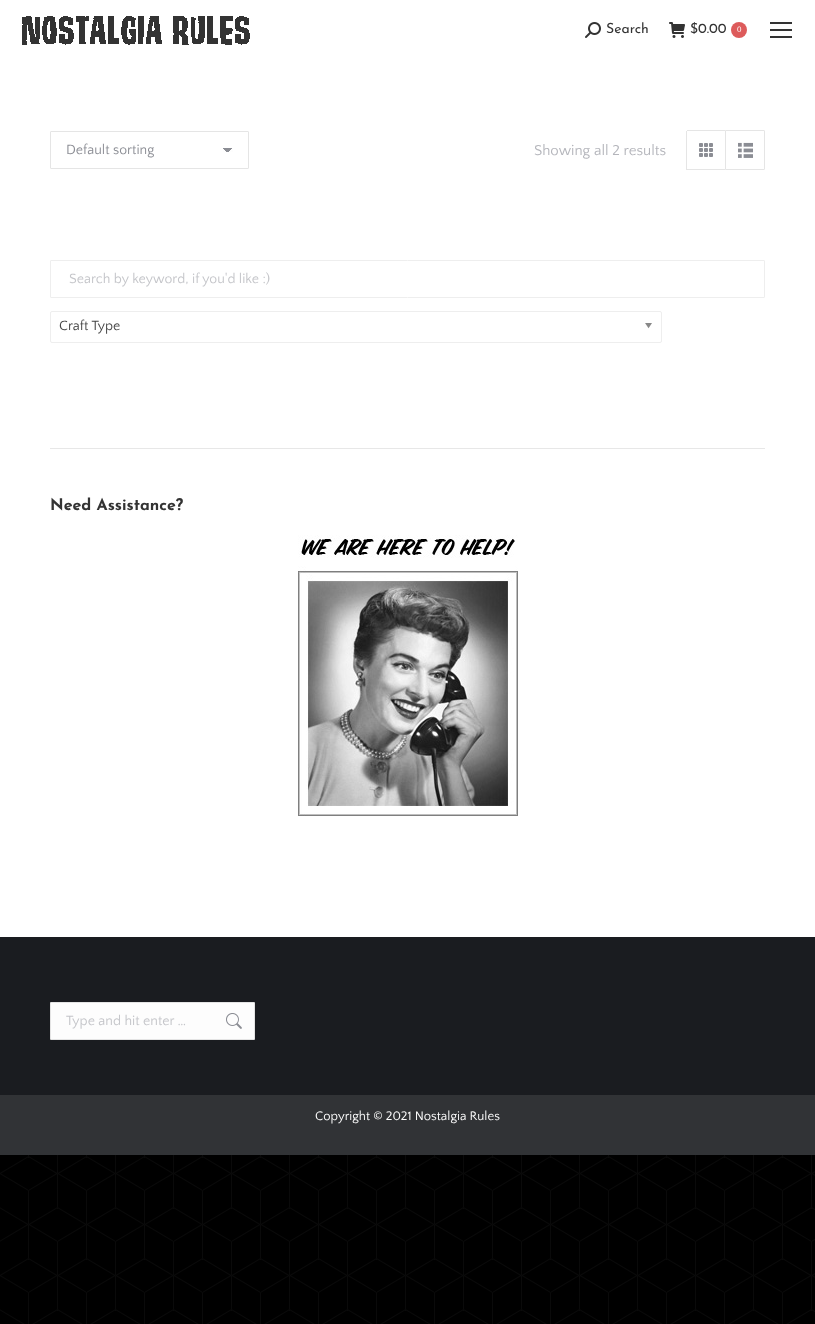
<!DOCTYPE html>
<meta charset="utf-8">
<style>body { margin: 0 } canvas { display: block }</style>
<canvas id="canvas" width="815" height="1324"></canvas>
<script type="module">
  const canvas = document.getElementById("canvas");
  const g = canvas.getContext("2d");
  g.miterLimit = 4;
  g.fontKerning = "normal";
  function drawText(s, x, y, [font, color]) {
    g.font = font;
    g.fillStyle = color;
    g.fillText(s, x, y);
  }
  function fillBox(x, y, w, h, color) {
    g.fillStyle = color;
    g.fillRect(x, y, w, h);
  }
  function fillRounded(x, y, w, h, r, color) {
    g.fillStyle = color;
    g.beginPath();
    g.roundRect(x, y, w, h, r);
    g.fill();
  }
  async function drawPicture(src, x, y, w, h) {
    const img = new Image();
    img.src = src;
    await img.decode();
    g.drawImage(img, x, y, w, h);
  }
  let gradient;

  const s1 = ["14px Josefin Sans", "#333333"];
  const s2 = ["8px Liberation Sans", "#FFFFFF"];
  const s3 = ["14px Quattrocento Sans", "#8B8D94"];
  const s4 = ["15px Quattrocento Sans", "#B4B5BB"];
  const s5 = ["14px Quattrocento Sans", "#C4C5C9"];
  const s6 = ["14px Quattrocento Sans", "#444444"];
  const s7 = ["bold 16px Josefin Sans", "#333333"];
  const s8 = ["13px Quattrocento Sans", "#FFFFFF"];

  fillBox(0, 0, 815, 1324, "#000000");
  await drawPicture("pic1.png", 0, 1155, 815, 169);
  fillBox(0, 0, 815, 937, "#FFFFFF");
  await drawPicture("pic2.png", 22, 16, 228, 29);
  await drawPicture("pic3.png", 585, 22, 16, 16);
  drawText("Search", 606, 33, s1);
  await drawPicture("pic4.png", 669, 22, 16, 16);
  drawText("$0.00", 690, 33, s1);
  g.fillStyle = "#DD5B5B";
  g.beginPath();
  g.arc(739, 30, 8, 0, Math.PI * 2);
  g.fill();
  drawText("0", 737, 32, s2);
  fillBox(770, 22, 22, 2, "#333333");
  fillBox(770, 29, 22, 2, "#333333");
  fillBox(770, 36, 22, 2, "#333333");
  gradient = g.createLinearGradient(228, 148, 233, 153);
  gradient.addColorStop(0.5, "#8B8D94");
  gradient.addColorStop(0.5, "#FDFDFD");
  g.fillStyle = gradient;
  g.fillRect(228, 148, 5, 4);
  gradient = g.createLinearGradient(223, 153, 228, 148);
  gradient.addColorStop(0.5, "#FDFDFD");
  gradient.addColorStop(0.5, "#8B8D94");
  g.fillStyle = gradient;
  g.fillRect(223, 148, 5, 4);
  g.beginPath();
  g.roundRect(50.5, 131.5, 198, 37, 0.5);
  g.strokeStyle = "#E5E5E5";
  g.stroke();
  drawText("Default sorting", 66, 154, s3);
  drawText("Showing all 2 results", 534, 155, s4);
  fillBox(687, 130, 38, 1, "#E5E5E5");
  fillBox(687, 169, 38, 1, "#E5E5E5");
  fillBox(686, 131, 1, 39, "#E5E5E5");
  await drawPicture("pic5.png", 699, 143, 14, 14);
  g.beginPath();
  g.roundRect(725.5, 130.5, 39, 39, [0, 0.5, 0.5, 0]);
  g.stroke();
  await drawPicture("pic6.png", 738, 142, 15, 16);
  g.beginPath();
  g.roundRect(50.5, 260.5, 714, 37, 0.5);
  g.strokeStyle = "#EEEEEE";
  g.stroke();
  drawText("Search by keyword, if you'd like :)", 69, 283, s5);
  g.beginPath();
  g.roundRect(50.5, 311.5, 611, 31, 1.5);
  g.stroke();
  drawText("Craft Type", 59, 330, s6);
  await drawPicture("pic7.png", 645, 323, 7, 6);
  fillBox(50, 448, 715, 1, "#E7E7E7");
  drawText("Need Assistance?", 50, 510, s7);
  await drawPicture("pic8.png", 298, 535, 220, 281);
  fillBox(0, 937, 815, 158, "#1A1C20");
  fillRounded(50, 1002, 205, 38, 1, "#FDFDFD");
  g.strokeStyle = "rgba(51, 51, 51, 0.12)";
  g.strokeRect(50.5, 1002.5, 204, 37);
  drawText("Type and hit enter …", 66, 1025, s5);
  await drawPicture("pic9.png", 226, 1013, 16, 16);
  fillBox(0, 1095, 815, 60, "#313336");
  drawText("Copyright © 2021 Nostalgia Rules", 315, 1120, s8);
</script>
